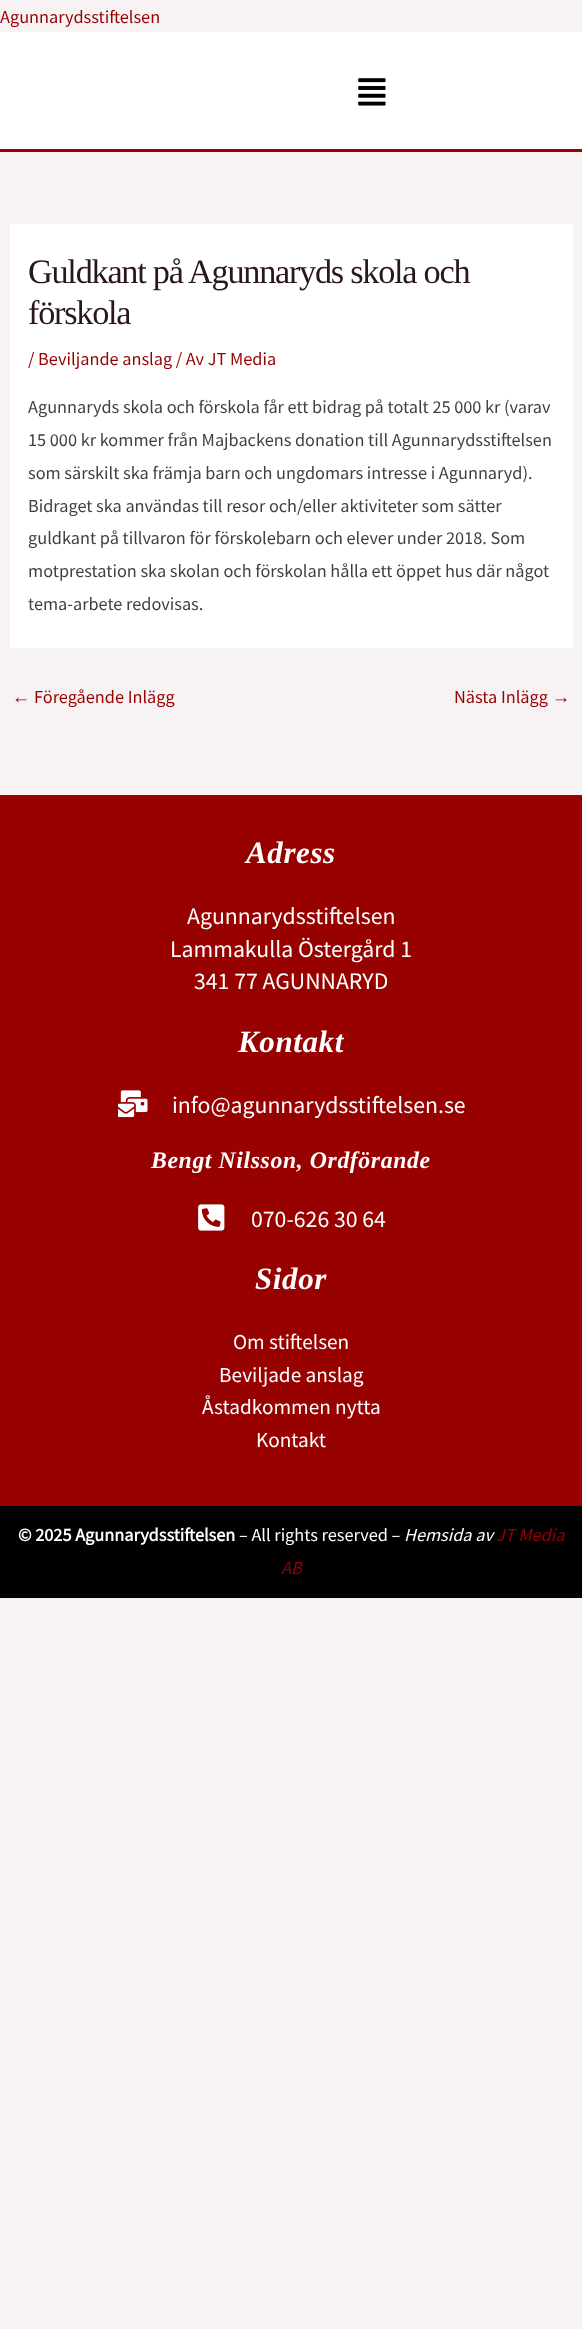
<!DOCTYPE html>
<meta charset="utf-8">
<style>body { margin: 0 } canvas { display: block }</style>
<canvas id="canvas" width="582" height="2329"></canvas>
<script type="module">
  const canvas = document.getElementById("canvas");
  const g = canvas.getContext("2d");
  g.miterLimit = 4;
  g.fontKerning = "normal";
  function drawText(s, x, y, [font, color]) {
    g.font = font;
    g.fillStyle = color;
    g.fillText(s, x, y);
  }
  function fillBox(x, y, w, h, color) {
    g.fillStyle = color;
    g.fillRect(x, y, w, h);
  }
  async function drawPicture(src, x, y, w, h) {
    const img = new Image();
    img.src = src;
    await img.decode();
    g.drawImage(img, x, y, w, h);
  }

  const s1 = ["18.25px Source Sans Pro", "#970100"];
  const s2 = ["34.25px Liberation Serif", "#2B161B"];
  const s3 = ["18.25px Source Sans Pro", "#453E3E"];
  const s4 = ["18.25px Liberation Sans", "#970100"];
  const s5 = ["italic bold 31px Liberation Serif", "#FFFFFF"];
  const s6 = ["23.75px Source Sans Pro", "#FFFFFF"];
  const s7 = ["italic bold 23.75px Liberation Serif", "#FFFFFF"];
  const s8 = ["21.25px Source Sans Pro", "#FFFFFF"];
  const s9 = ["bold 18.25px Source Sans Pro", "#FFFFFF"];
  const s10 = ["18.25px Source Sans Pro", "#FFFFFF"];
  const s11 = ["italic 18.25px Source Sans Pro", "#FFFFFF"];
  const s12 = ["italic 18.25px Source Sans Pro", "#970100"];

  fillBox(0, 0, 582, 2329, "#F7F3F5");
  drawText("Agunnarydsstiftelsen", 0, 23, s1);
  fillBox(0, 32, 582, 117, "#FFFFFF");
  fillBox(0, 149, 582, 3, "#9E0000");
  await drawPicture("pic1.png", 358, 78, 28, 28);
  fillBox(10, 224, 563, 424, "#FFFFFF");
  g.letterSpacing = "-1.25px";
  drawText("Guldkant på Agunnaryds skola och", 28, 283, s2);
  drawText("förskola", 28, 324, s2);
  g.letterSpacing = "0px";
  drawText("/ Beviljande anslag / Av JT Media", 28, 365, s1);
  drawText("Agunnaryds skola och förskola får ett bidrag på totalt 25 000 kr (varav", 28, 413, s3);
  drawText("15 000 kr kommer från Majbackens donation till Agunnarydsstiftelsen", 28, 446, s3);
  drawText("som särskilt ska främja barn och ungdomars intresse i Agunnaryd).", 28, 479, s3);
  drawText("Bidraget ska användas till resor och/eller aktiviteter som sätter", 28, 512, s3);
  drawText("guldkant på tillvaron för förskolebarn och elever under 2018. Som", 28, 544, s3);
  drawText("motprestation ska skolan och förskolan hålla ett öppet hus där något", 28, 577, s3);
  drawText("tema-arbete redovisas.", 28, 610, s3);
  drawText("←", 12, 703, s4);
  drawText("Föregående Inlägg", 34, 703, s1);
  drawText("Nästa Inlägg", 454, 703, s1);
  drawText("→", 552, 703, s4);
  fillBox(0, 795, 582, 711, "#970100");
  g.letterSpacing = "0.6px";
  drawText("Adress", 246, 863, s5);
  g.letterSpacing = "0px";
  drawText("Agunnarydsstiftelsen", 187, 924, s6);
  drawText("Lammakulla Östergård 1", 170, 957, s6);
  drawText("341 77 AGUNNARYD", 194, 989, s6);
  g.letterSpacing = "0.6px";
  drawText("Kontakt", 238, 1052, s5);
  await drawPicture("pic2.png", 118, 1090, 30, 28);
  g.letterSpacing = "0px";
  drawText("info@agunnarydsstiftelsen.se", 172, 1113, s6);
  g.letterSpacing = "0.6px";
  drawText("Bengt Nilsson, Ordförande", 151, 1168, s7);
  await drawPicture("pic3.png", 198, 1204, 27, 27);
  g.letterSpacing = "0px";
  drawText("070-626 30 64", 251, 1227, s6);
  g.letterSpacing = "0.6px";
  drawText("Sidor", 255, 1289, s5);
  g.letterSpacing = "0px";
  drawText("Om stiftelsen", 233, 1349, s8);
  drawText("Beviljade anslag", 219, 1382, s8);
  drawText("Åstadkommen nytta", 202, 1414, s8);
  drawText("Kontakt", 256, 1447, s8);
  fillBox(0, 1506, 582, 92, "#000000");
  drawText("© 2025 Agunnarydsstiftelsen", 18, 1541, s9);
  drawText("– All rights reserved –", 239, 1541, s10);
  drawText("Hemsida av", 404, 1541, s11);
  drawText("JT Media", 496, 1541, s12);
  drawText("AB", 281, 1574, s12);
</script>
